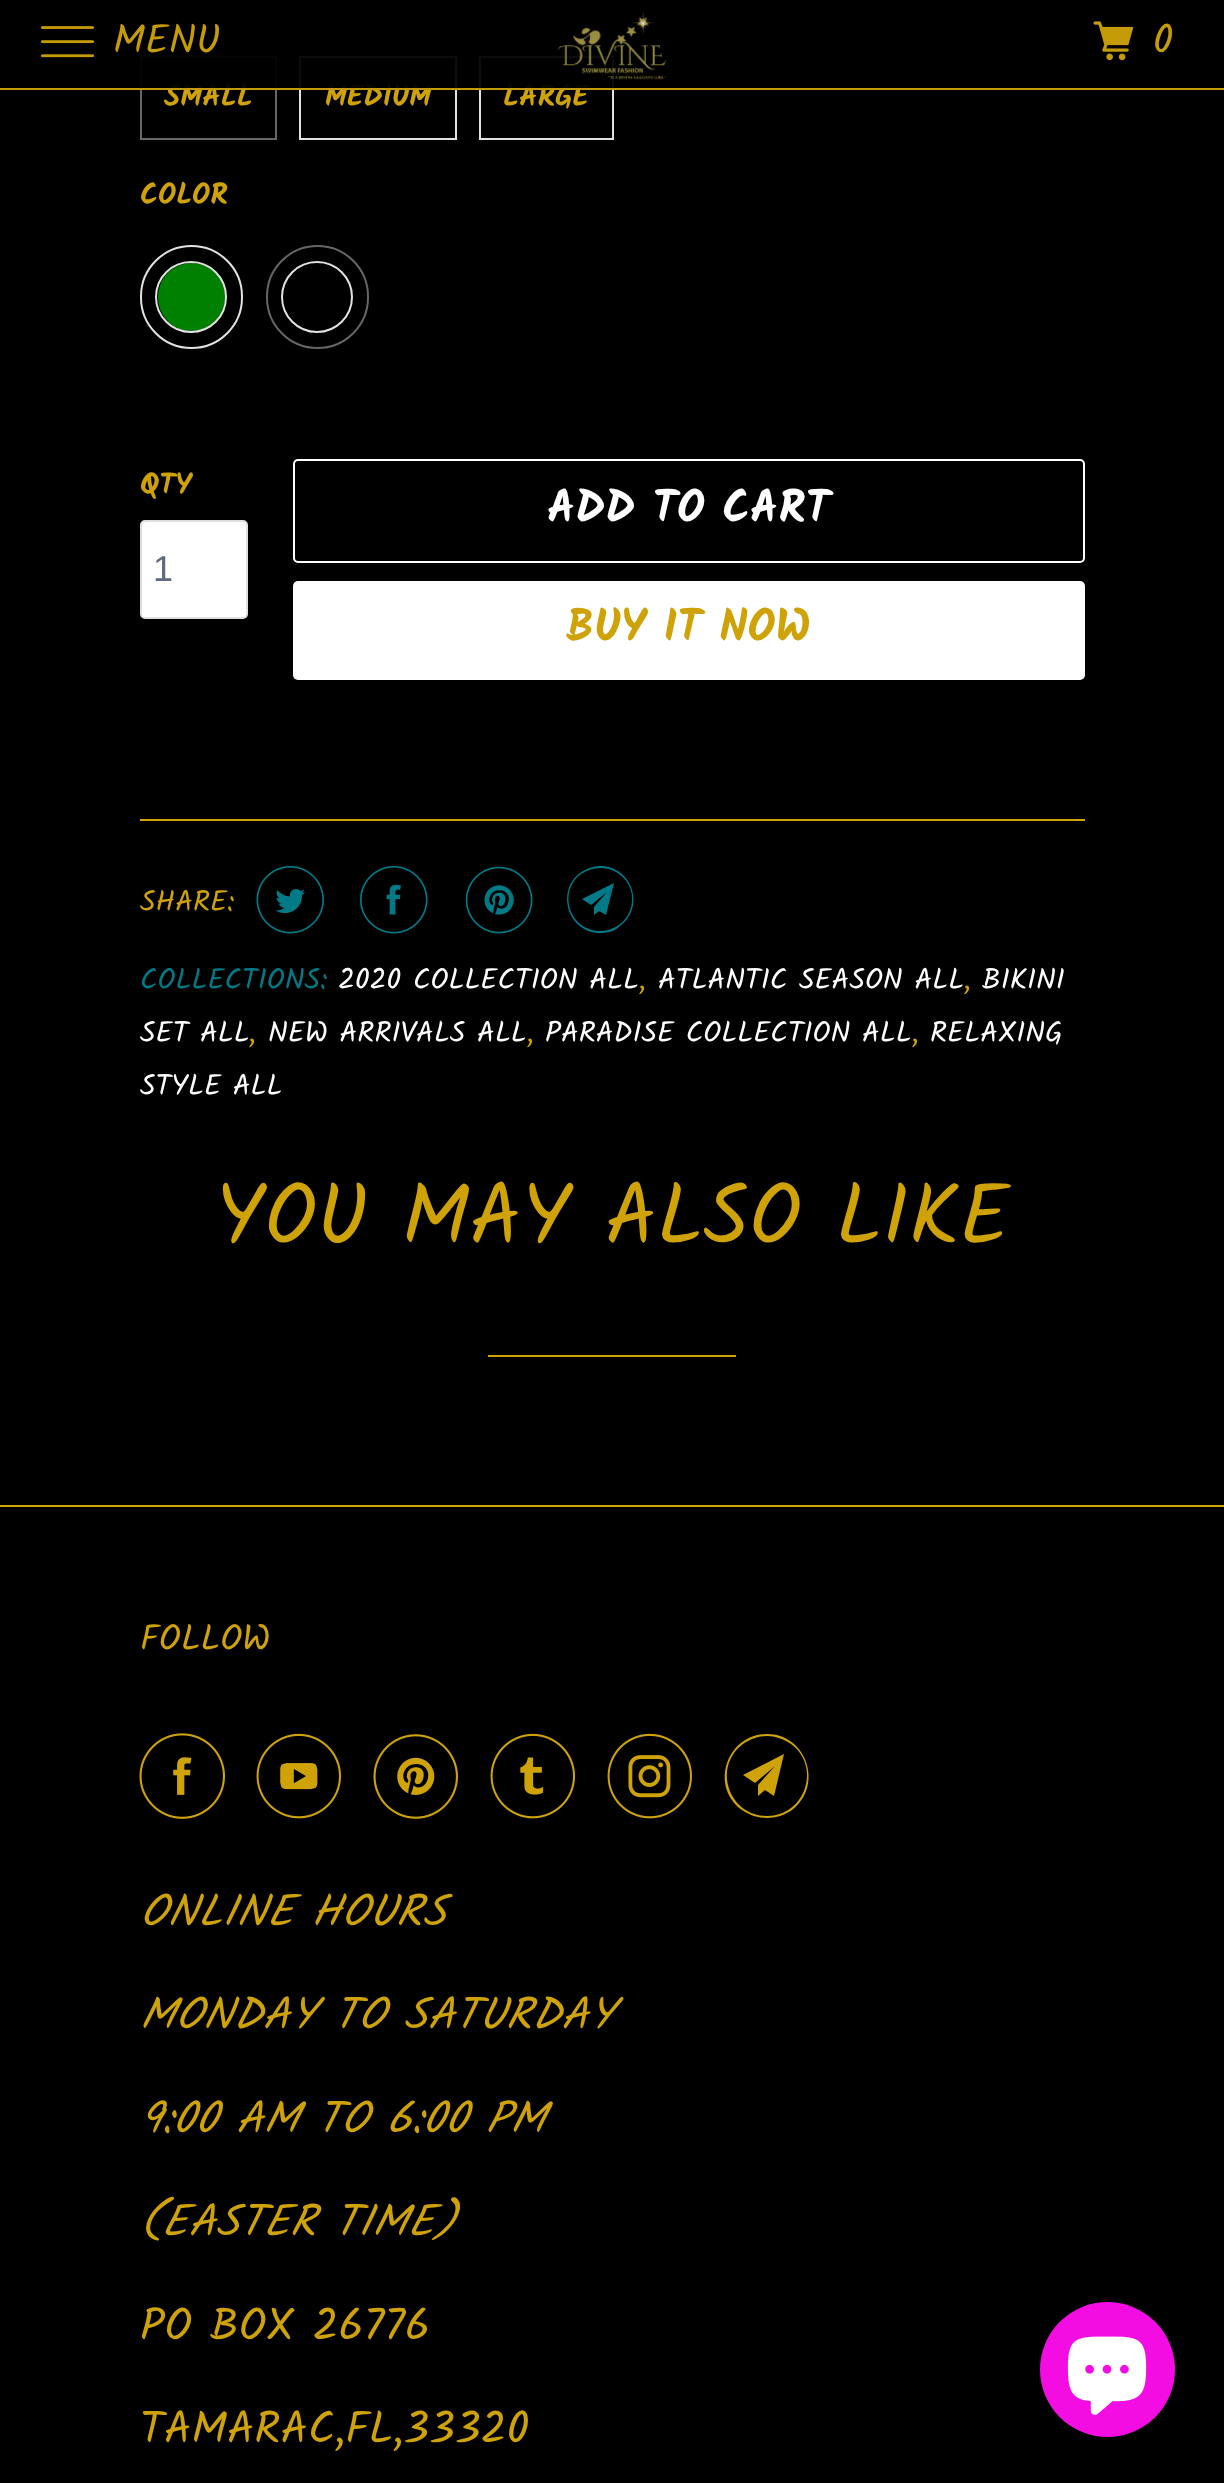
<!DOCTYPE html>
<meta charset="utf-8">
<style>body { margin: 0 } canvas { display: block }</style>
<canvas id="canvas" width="1224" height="2483"></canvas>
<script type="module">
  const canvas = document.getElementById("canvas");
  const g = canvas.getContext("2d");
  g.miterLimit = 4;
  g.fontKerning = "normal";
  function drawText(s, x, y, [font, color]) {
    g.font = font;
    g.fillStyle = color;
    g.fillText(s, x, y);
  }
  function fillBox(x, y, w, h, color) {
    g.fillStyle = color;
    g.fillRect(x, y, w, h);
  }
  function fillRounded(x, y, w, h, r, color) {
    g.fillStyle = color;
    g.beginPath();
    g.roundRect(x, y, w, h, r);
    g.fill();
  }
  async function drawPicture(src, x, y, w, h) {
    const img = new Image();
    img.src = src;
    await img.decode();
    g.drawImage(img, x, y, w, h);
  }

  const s1 = ["bold 29.25px Kalam", "#CFA307"];
  const s2 = ["40.5px Kalam", "#C59B07"];
  const s3 = ["36px Liberation Sans", "#5F6A7D"];
  const s4 = ["bold 45px Kalam", "#FFFFFF"];
  const s5 = ["bold 45px Kalam", "#CFA307"];
  const s6 = ["29.25px Kalam", "#CFA307"];
  const s7 = ["29.25px Kalam", "#007A87"];
  const s8 = ["29.25px Kalam", "#FFFFFF"];
  const s9 = ["85.5px Kalam", "#CFA307"];
  const s10 = ["36px Kalam", "#CFA307"];
  const s11 = ["italic 45px Kalam", "#CFA307"];
  const s12 = ["45px Kalam", "#CFA307"];

  fillBox(0, 0, 1224, 2483, "#000000");
  g.strokeStyle = "#666666";
  g.lineWidth = 2;
  g.strokeRect(141, 57, 135, 82);
  drawText("SMALL", 164, 106, s1);
  g.strokeStyle = "#E2E2E2";
  g.strokeRect(300, 57, 156, 82);
  drawText("MEDIUM", 325, 106, s1);
  g.strokeRect(480, 57, 133, 82);
  drawText("LARGE", 503, 106, s1);
  fillBox(140, 56, 474, 34, "rgba(0, 0, 0, 0.95)");
  fillBox(0, 88, 1224, 2, "rgba(207, 163, 7, 0.95)");
  await drawPicture("pic1.png", 40, 26, 55, 32);
  drawText("MENU", 113, 53, s2);
  await drawPicture("pic2.png", 557, 11, 110, 69);
  await drawPicture("pic3.png", 1093, 21, 41, 40);
  drawText("0", 1153, 53, s2);
  drawText("COLOR", 140, 204, s1);
  g.beginPath();
  g.roundRect(141, 246, 101, 102, 50.5);
  g.stroke();
  fillRounded(158, 263, 67, 68, 33.5, "#008000");
  g.beginPath();
  g.arc(191, 297, 35, 0, Math.PI * 2);
  g.stroke();
  g.beginPath();
  g.roundRect(267, 246, 101, 102, 50.5);
  g.strokeStyle = "#666666";
  g.stroke();
  g.beginPath();
  g.arc(317, 297, 35, 0, Math.PI * 2);
  g.strokeStyle = "#E2E2E2";
  g.stroke();
  drawText("QTY", 140, 494, s1);
  g.fillStyle = "#FFFFFF";
  g.beginPath();
  g.roundRect(141, 521, 106, 97, 4);
  g.fill();
  g.strokeStyle = "#DFDFDF";
  g.stroke();
  drawText("1", 153, 581, s3);
  g.beginPath();
  g.roundRect(294, 460, 790, 102, 4);
  g.strokeStyle = "#FFFFFF";
  g.stroke();
  drawText("ADD TO CART", 547, 522, s4);
  fillRounded(293, 581, 792, 99, 5, "#FFFFFF");
  drawText("BUY IT NOW", 566, 641, s5);
  fillBox(140, 819, 945, 2, "#CFA307");
  drawText("SHARE:", 140, 911, s6);
  await drawPicture("pic4.png", 256, 866, 68, 68);
  await drawPicture("pic5.png", 360, 866, 68, 68);
  await drawPicture("pic6.png", 465, 866, 68, 68);
  g.fillStyle = "#007A87";
  g.beginPath();
  g.moveTo(606, 915);
  g.lineTo(599, 911);
  g.lineTo(594, 915);
  g.lineTo(594, 907);
  g.lineTo(607, 892);
  g.lineTo(591, 905);
  g.lineTo(582, 899);
  g.lineTo(614, 883);
  g.closePath();
  g.moveTo(600, 868);
  g.bezierCurveTo(594, 868, 587, 870, 581, 874);
  g.bezierCurveTo(557, 892, 570, 931, 600, 931);
  g.bezierCurveTo(631, 931, 644, 892, 619, 874);
  g.bezierCurveTo(614, 870, 607, 868, 600, 868);
  g.closePath();
  g.moveTo(600, 933);
  g.bezierCurveTo(569, 933, 555, 892, 580, 873);
  g.bezierCurveTo(586, 869, 593, 866, 600, 866);
  g.bezierCurveTo(632, 866, 646, 907, 620, 926);
  g.bezierCurveTo(615, 931, 608, 933, 600, 933);
  g.closePath();
  g.fill();
  drawText("COLLECTIONS:", 140, 989, s7);
  drawText("2020 COLLECTION ALL", 338, 989, s8);
  drawText("ATLANTIC SEASON ALL", 658, 989, s8);
  drawText("BIKINI", 982, 989, s8);
  drawText(",", 639, 989, s6);
  drawText(",", 964, 989, s6);
  drawText("SET ALL", 140, 1042, s8);
  drawText(",", 249, 1042, s6);
  drawText("NEW ARRIVALS ALL", 268, 1042, s8);
  drawText(",", 527, 1042, s6);
  drawText("PARADISE COLLECTION ALL", 545, 1042, s8);
  drawText(",", 912, 1042, s6);
  drawText("RELAXING", 930, 1042, s8);
  drawText("STYLE ALL", 140, 1095, s8);
  drawText("YOU MAY ALSO LIKE", 215, 1244, s9);
  fillBox(488, 1355, 248, 2, "#CFA307");
  fillBox(0, 1505, 1224, 2, "#CFA307");
  drawText("FOLLOW", 140, 1650, s10);
  await drawPicture("pic7.png", 139, 1733, 86, 86);
  await drawPicture("pic8.png", 256, 1733, 85, 86);
  await drawPicture("pic9.png", 373, 1734, 85, 85);
  await drawPicture("pic10.png", 490, 1733, 85, 86);
  await drawPicture("pic11.png", 607, 1733, 85, 86);
  g.beginPath();
  g.moveTo(774, 1796);
  g.lineTo(765, 1790);
  g.lineTo(758, 1796);
  g.lineTo(758, 1785);
  g.lineTo(775, 1766);
  g.lineTo(755, 1783);
  g.lineTo(743, 1775);
  g.lineTo(784, 1754);
  g.closePath();
  g.moveTo(767, 1736);
  g.bezierCurveTo(758, 1736, 750, 1739, 743, 1744);
  g.bezierCurveTo(712, 1767, 729, 1816, 767, 1816);
  g.bezierCurveTo(805, 1816, 822, 1767, 791, 1744);
  g.bezierCurveTo(784, 1739, 775, 1736, 767, 1736);
  g.closePath();
  g.moveTo(767, 1818);
  g.bezierCurveTo(758, 1818, 749, 1815, 742, 1810);
  g.bezierCurveTo(709, 1786, 727, 1734, 767, 1734);
  g.bezierCurveTo(807, 1734, 824, 1786, 792, 1810);
  g.bezierCurveTo(785, 1815, 776, 1818, 767, 1818);
  g.closePath();
  g.fill();
  drawText("ONLINE HOURS", 140, 1926, s11);
  drawText("MONDAY TO SATURDAY", 140, 2029, s11);
  drawText("9:00 AM TO 6:00 PM", 140, 2133, s11);
  drawText("(EASTER TIME)", 140, 2236, s11);
  drawText("PO BOX 26776", 140, 2340, s12);
  drawText("TAMARAC,FL,33320", 140, 2443, s12);
  g.fillStyle = "#F30DE3";
  g.beginPath();
  g.arc(1107.5, 2369.5, 67.5, 0, Math.PI * 2);
  g.fill();
  await drawPicture("pic12.png", 1067, 2336, 80, 79);
</script>
